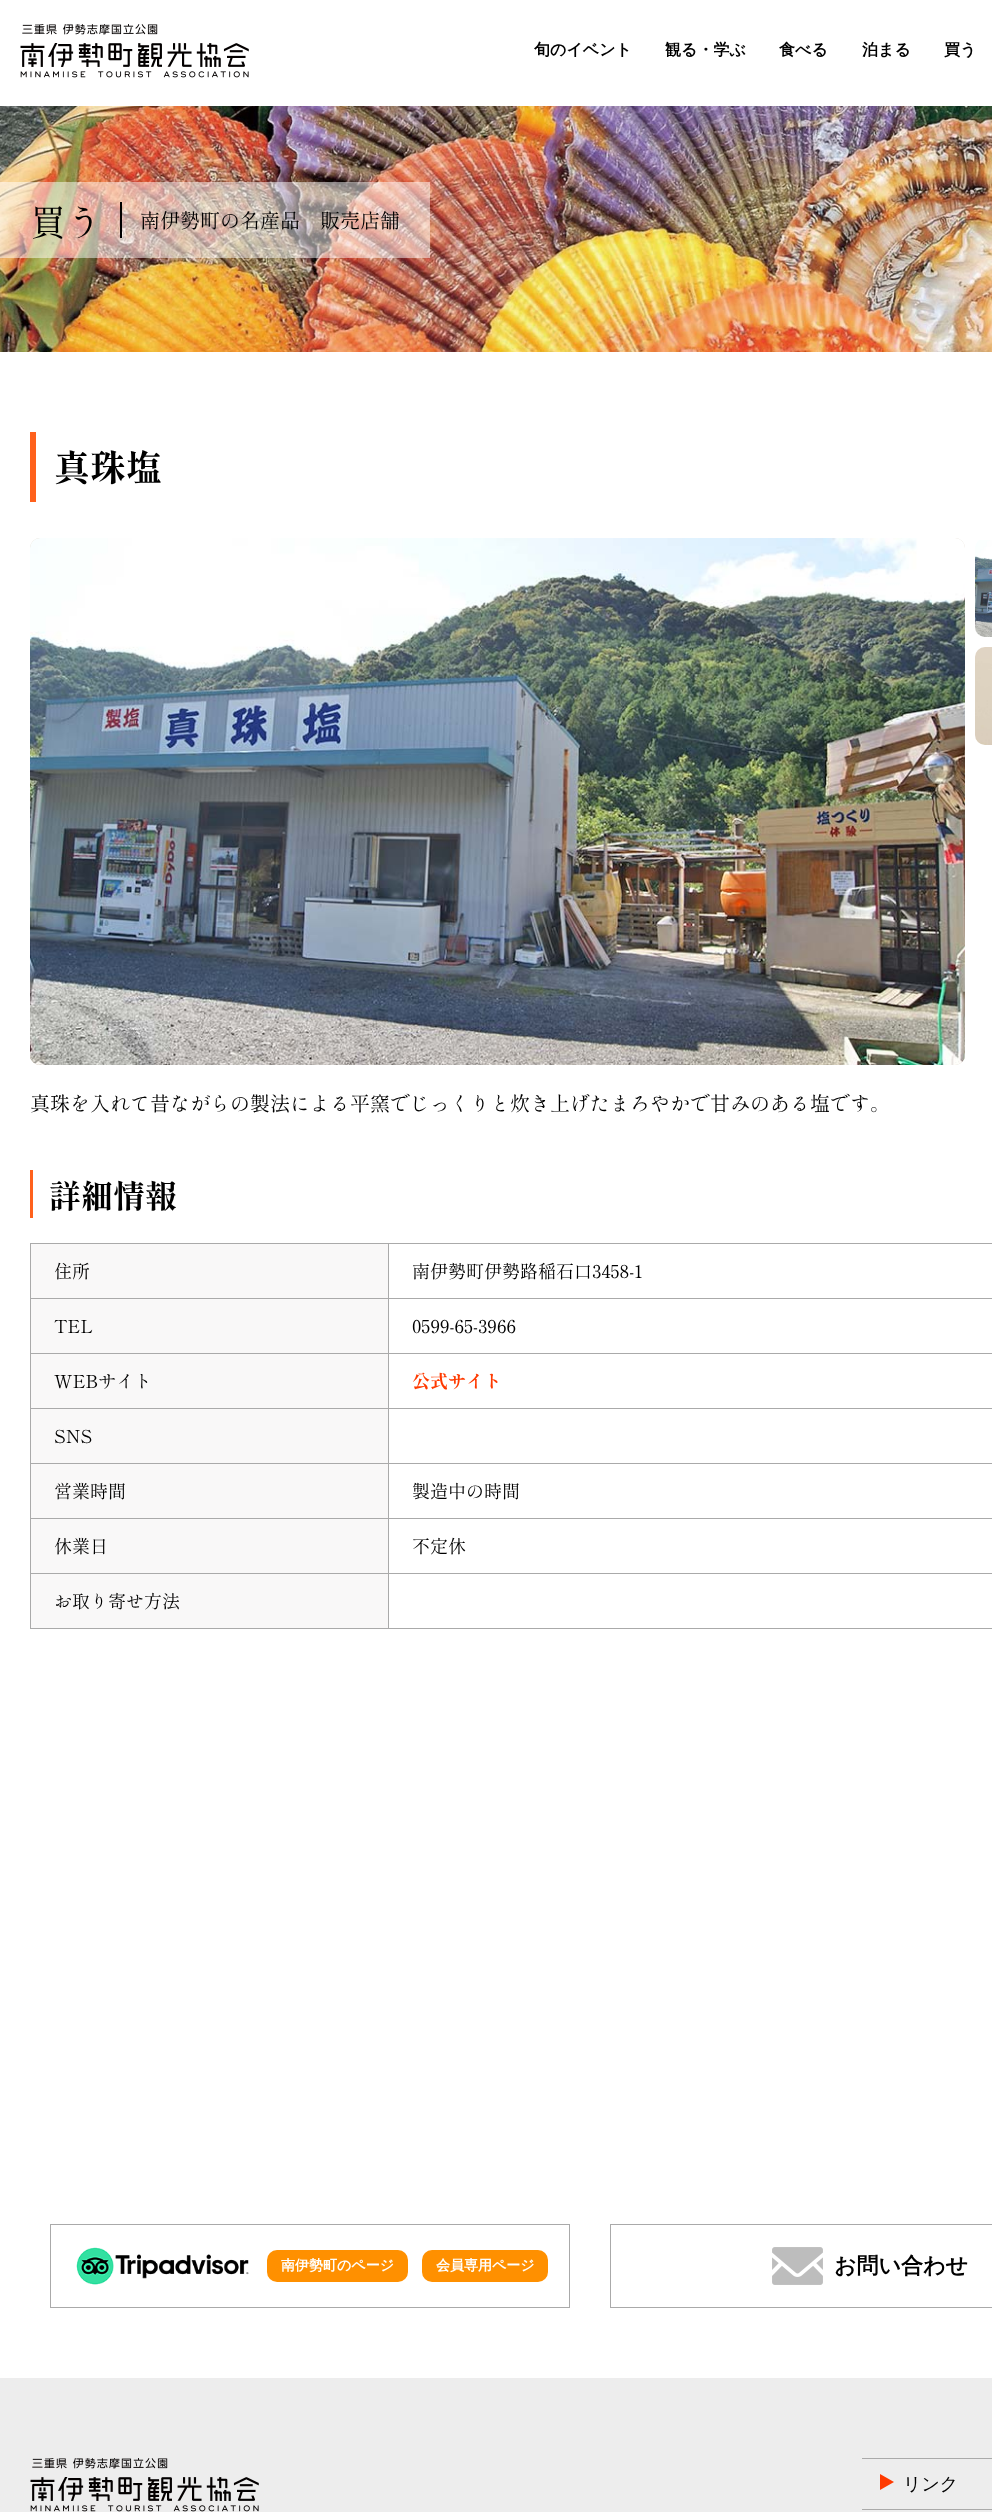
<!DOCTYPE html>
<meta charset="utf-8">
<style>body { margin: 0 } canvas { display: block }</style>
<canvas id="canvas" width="992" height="2512"></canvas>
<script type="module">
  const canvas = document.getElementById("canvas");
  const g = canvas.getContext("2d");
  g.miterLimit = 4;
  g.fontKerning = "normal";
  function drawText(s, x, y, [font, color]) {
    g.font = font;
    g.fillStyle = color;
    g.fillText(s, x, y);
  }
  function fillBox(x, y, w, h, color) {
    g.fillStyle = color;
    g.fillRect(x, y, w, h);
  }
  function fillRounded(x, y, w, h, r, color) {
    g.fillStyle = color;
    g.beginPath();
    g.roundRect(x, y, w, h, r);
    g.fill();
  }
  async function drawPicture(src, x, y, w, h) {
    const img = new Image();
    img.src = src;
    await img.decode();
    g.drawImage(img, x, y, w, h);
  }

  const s1 = ["bold 16px WenQuanYi Zen Hei", "#000000"];
  const s2 = ["36px Shippori Mincho", "#000000"];
  const s3 = ["20px Shippori Mincho", "#000000"];
  const s4 = ["bold 36px Shippori Mincho", "#000000"];
  const s5 = ["bold 32px Shippori Mincho", "#000000"];
  const s6 = ["18px Shippori Mincho", "#000000"];
  const s7 = ["bold 18px Shippori Mincho", "#FF3A00"];
  const s8 = ["bold 14px WenQuanYi Zen Hei", "#FFFFFF"];
  const s9 = ["bold 22px WenQuanYi Zen Hei", "#000000"];
  const s10 = ["500 18px WenQuanYi Zen Hei", "#000000"];

  fillBox(0, 0, 992, 2512, "#FFFFFF");
  await drawPicture("pic1.png", 20, 24, 229, 54);
  drawText("旬のイベント", 534, 55, s1);
  drawText("観る・学ぶ", 665, 55, s1);
  drawText("食べる", 779, 55, s1);
  drawText("泊まる", 862, 55, s1);
  drawText("買う", 944, 55, s1);
  await drawPicture("pic2.png", 0, 106, 992, 246);
  fillBox(0, 182, 430, 76, "rgba(255, 255, 255, 0.5)");
  fillBox(120, 202, 2, 36, "#000000");
  drawText("買う", 30, 236, s2);
  drawText("南伊勢町の名産品　販売店舗", 140, 228, s3);
  fillBox(30, 432, 6, 70, "#FF611C");
  drawText("真珠塩", 54, 481, s4);
  await drawPicture("pic3.png", 30, 538, 935, 527);
  await drawPicture("pic4.png", 30, 538, 935, 527);
  await drawPicture("pic5.png", 30, 538, 935, 527);
  await drawPicture("pic6.png", 975, 540, 17, 97);
  await drawPicture("pic7.png", 975, 647, 17, 98);
  drawText("真珠を入れて昔ながらの製法による平窯でじっくりと炊き上げたまろやかで甘みのある塩です。", 30, 1111, s3);
  fillBox(30, 1170, 3, 48, "#FF611C");
  drawText("詳細情報", 49, 1208, s5);
  fillBox(31, 1244, 357, 54, "#F9F8F8");
  fillBox(388, 1243, 604, 1, "#AAAAAA");
  fillBox(388, 1298, 604, 1, "#AAAAAA");
  fillBox(388, 1353, 604, 1, "#AAAAAA");
  fillBox(388, 1408, 604, 1, "#AAAAAA");
  fillBox(388, 1463, 604, 1, "#AAAAAA");
  fillBox(388, 1518, 604, 1, "#AAAAAA");
  fillBox(388, 1573, 604, 1, "#AAAAAA");
  fillBox(388, 1628, 604, 1, "#AAAAAA");
  fillBox(388, 1573, 1, 56, "#AAAAAA");
  fillBox(30, 1573, 359, 1, "#AAAAAA");
  fillBox(388, 1518, 1, 56, "#AAAAAA");
  fillBox(30, 1518, 359, 1, "#AAAAAA");
  fillBox(388, 1463, 1, 56, "#AAAAAA");
  fillBox(30, 1463, 359, 1, "#AAAAAA");
  fillBox(388, 1408, 1, 56, "#AAAAAA");
  fillBox(30, 1408, 359, 1, "#AAAAAA");
  fillBox(388, 1353, 1, 56, "#AAAAAA");
  fillBox(30, 1353, 359, 1, "#AAAAAA");
  fillBox(388, 1298, 1, 56, "#AAAAAA");
  fillBox(30, 1298, 359, 1, "#AAAAAA");
  fillBox(388, 1243, 1, 56, "#AAAAAA");
  fillBox(30, 1243, 359, 1, "#AAAAAA");
  fillBox(30, 1628, 359, 1, "#AAAAAA");
  fillBox(30, 1573, 1, 56, "#AAAAAA");
  fillBox(30, 1518, 1, 56, "#AAAAAA");
  fillBox(30, 1463, 1, 56, "#AAAAAA");
  fillBox(30, 1408, 1, 56, "#AAAAAA");
  fillBox(30, 1353, 1, 56, "#AAAAAA");
  fillBox(30, 1298, 1, 56, "#AAAAAA");
  fillBox(30, 1243, 1, 56, "#AAAAAA");
  drawText("住所", 54, 1278, s6);
  drawText("南伊勢町伊勢路稲石口3458-1", 412, 1278, s6);
  fillBox(31, 1299, 357, 54, "#F9F8F8");
  drawText("TEL", 54, 1333, s6);
  drawText("0599-65-3966", 412, 1333, s6);
  fillBox(31, 1354, 357, 54, "#F9F8F8");
  drawText("WEBサイト", 54, 1388, s6);
  drawText("公式サイト", 412, 1388, s7);
  fillBox(31, 1409, 357, 54, "#F9F8F8");
  drawText("SNS", 54, 1443, s6);
  fillBox(31, 1464, 357, 54, "#F9F8F8");
  drawText("営業時間", 54, 1498, s6);
  drawText("製造中の時間", 412, 1498, s6);
  fillBox(31, 1519, 357, 54, "#F9F8F8");
  drawText("休業日", 54, 1553, s6);
  drawText("不定休", 412, 1553, s6);
  fillBox(31, 1574, 357, 54, "#F9F8F8");
  drawText("お取り寄せ方法", 54, 1608, s6);
  g.strokeStyle = "#AAAAAA";
  g.strokeRect(50.5, 2224.5, 519, 83);
  await drawPicture("pic8.png", 76, 2247, 173, 38);
  fillRounded(267, 2250, 141, 32, 10, "#FF9000");
  drawText("南伊勢町のページ", 281, 2270, s8);
  fillRounded(422, 2250, 126, 32, 10, "#FF9000");
  drawText("会員専用ページ", 436, 2270, s8);
  g.strokeRect(610.5, 2224.5, 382, 83);
  await drawPicture("pic9.png", 772, 2247, 51, 38);
  drawText("お問い合わせ", 834, 2273, s9);
  fillBox(0, 2378, 992, 134, "#EDEDED");
  await drawPicture("pic10.png", 30, 2458, 229, 54);
  fillBox(862, 2458, 130, 1, "#AAAAAA");
  fillBox(862, 2509, 130, 1, "#AAAAAA");
  g.fillStyle = "#FF3A00";
  g.beginPath();
  g.moveTo(880, 2490);
  g.lineTo(880, 2474);
  g.lineTo(894, 2482);
  g.closePath();
  g.fill();
  drawText("リンク", 903, 2490, s10);
</script>
